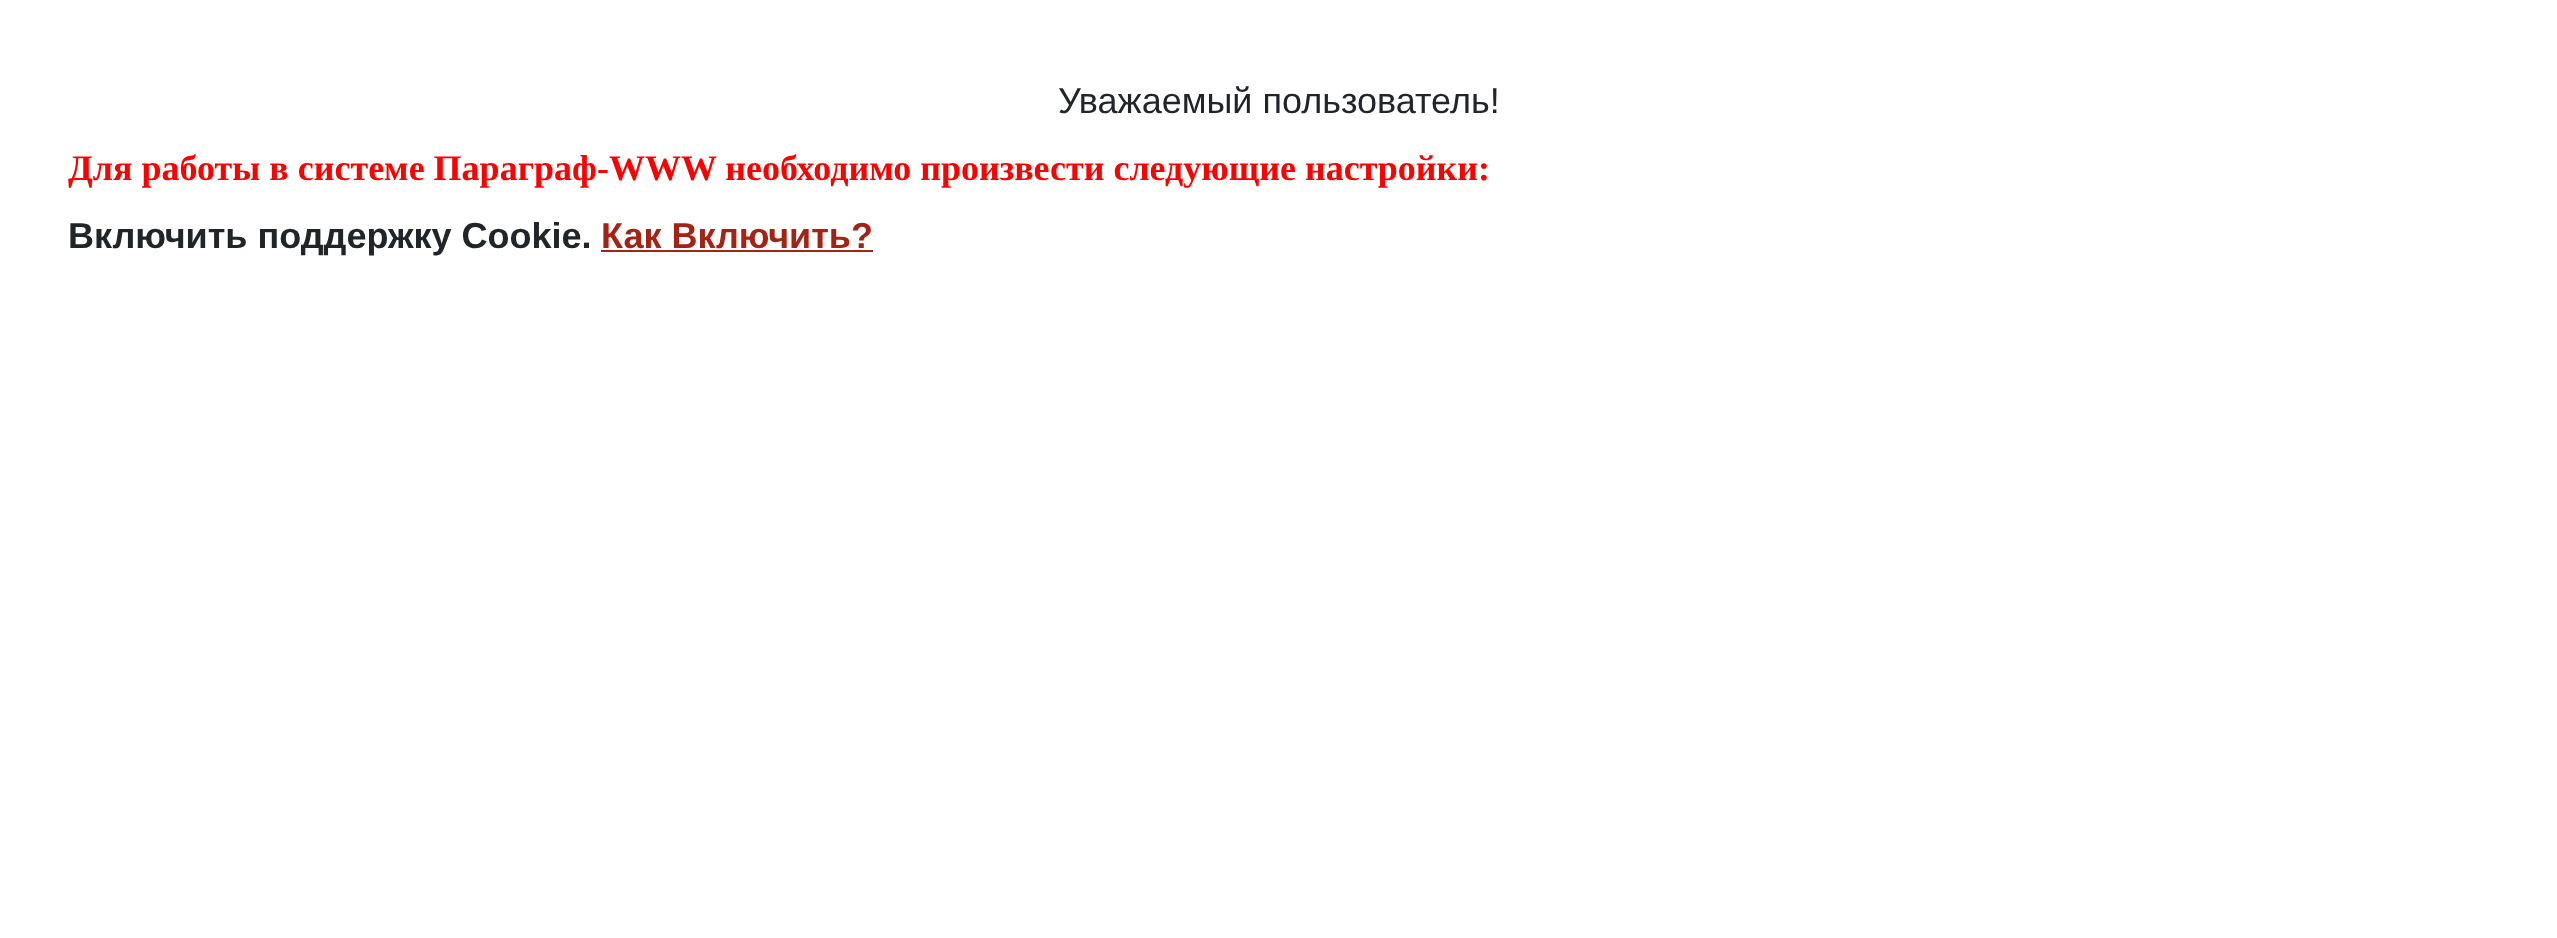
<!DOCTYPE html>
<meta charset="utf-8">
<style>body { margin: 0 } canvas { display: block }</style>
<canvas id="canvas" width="2557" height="938"></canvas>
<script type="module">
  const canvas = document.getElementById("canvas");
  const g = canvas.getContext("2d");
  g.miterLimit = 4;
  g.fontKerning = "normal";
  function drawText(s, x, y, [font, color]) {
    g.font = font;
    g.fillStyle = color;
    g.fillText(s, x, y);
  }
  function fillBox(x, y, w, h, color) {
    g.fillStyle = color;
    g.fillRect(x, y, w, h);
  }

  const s1 = ["36px Liberation Sans", "#212529"];
  const s2 = ["bold 36px Liberation Serif", "#FF0000"];
  const s3 = ["bold 36px Liberation Sans", "#212529"];
  const s4 = ["bold 36px Liberation Sans", "#A52315"];

  fillBox(0, 0, 2557, 938, "#FFFFFF");
  drawText("Уважаемый пользователь!", 1058, 113, s1);
  drawText("Для работы в системе Параграф-WWW необходимо произвести следующие настройки:", 68, 180, s2);
  drawText("Включить поддержку Cookie.", 68, 248, s3);
  drawText("Как Включить?", 601, 248, s4);
  fillBox(601, 250, 272, 2, "#A52315");
</script>
